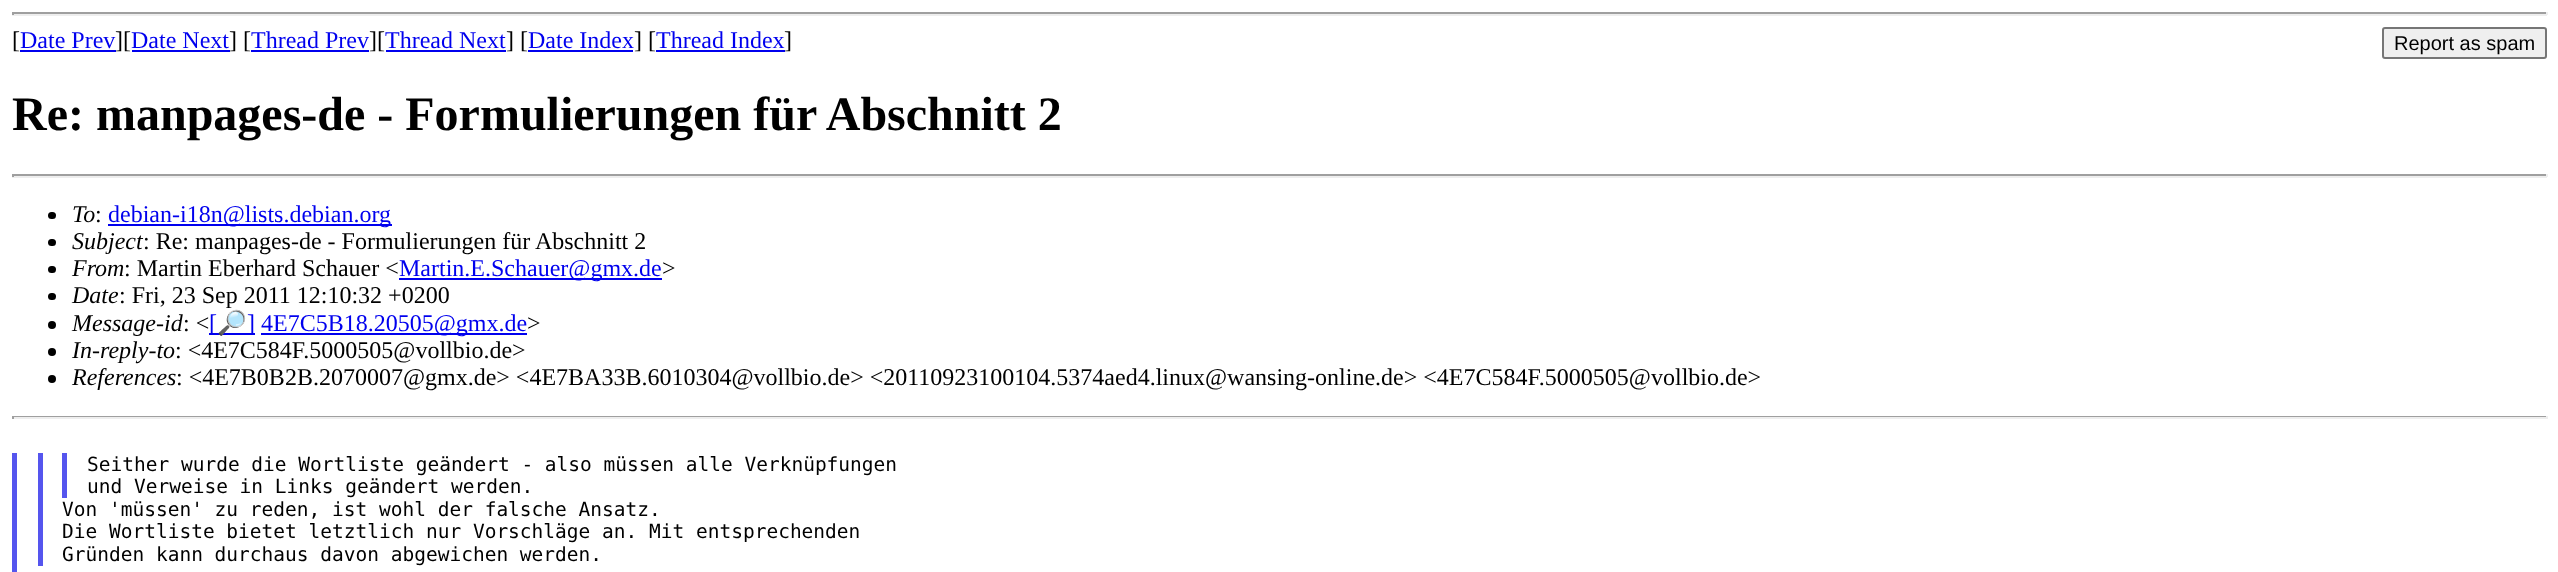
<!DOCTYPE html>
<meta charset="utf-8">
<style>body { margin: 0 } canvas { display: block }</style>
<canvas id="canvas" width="2558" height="572"></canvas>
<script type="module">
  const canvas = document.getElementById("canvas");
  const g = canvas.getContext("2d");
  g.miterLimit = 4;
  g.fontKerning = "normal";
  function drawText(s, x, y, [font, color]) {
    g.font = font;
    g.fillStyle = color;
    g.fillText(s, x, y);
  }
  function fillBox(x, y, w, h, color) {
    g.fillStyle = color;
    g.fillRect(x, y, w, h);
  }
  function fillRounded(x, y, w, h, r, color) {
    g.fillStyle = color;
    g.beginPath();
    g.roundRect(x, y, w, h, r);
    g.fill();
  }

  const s1 = ["24px Liberation Serif", "#000000"];
  const s2 = ["24px Liberation Serif", "#0000EE"];
  const s3 = ["20px Liberation Sans", "#000000"];
  const s4 = ["bold 48px Liberation Serif", "#000000"];
  const s5 = ["italic 24px Liberation Serif", "#000000"];
  const s6 = ["24px Noto Color Emoji", "#0000EE"];
  const s7 = ["19.5px DejaVu Sans Mono", "#000000"];

  fillBox(0, 0, 2558, 572, "#FFFFFF");
  fillBox(12, 12, 2535, 2, "#9F9F9F");
  fillBox(2546, 12, 2, 3, "#EEEEEE");
  fillBox(12, 14, 2535, 2, "#EEEEEE");
  fillBox(12, 12, 2, 3, "#9F9F9F");
  drawText("[", 12, 48, s1);
  drawText("Date Prev", 20, 48, s2);
  fillBox(20, 50, 96, 2, "#0000EE");
  drawText("][", 115, 48, s1);
  drawText("Date Next", 131, 48, s2);
  fillBox(132, 50, 98, 2, "#0000EE");
  drawText("] [", 229, 48, s1);
  drawText("Thread Prev", 251, 48, s2);
  fillBox(251, 50, 118, 2, "#0000EE");
  drawText("][", 369, 48, s1);
  drawText("Thread Next", 385, 48, s2);
  fillBox(386, 50, 120, 2, "#0000EE");
  drawText("] [", 506, 48, s1);
  drawText("Date Index", 528, 48, s2);
  fillBox(528, 50, 105, 2, "#0000EE");
  drawText("] [", 634, 48, s1);
  drawText("Thread Index", 656, 48, s2);
  fillBox(656, 50, 129, 2, "#0000EE");
  drawText("]", 784, 48, s1);
  g.fillStyle = "#EFEFEF";
  g.beginPath();
  g.roundRect(2383, 28, 163, 30, 2);
  g.fill();
  g.strokeStyle = "#767676";
  g.lineWidth = 2;
  g.stroke();
  drawText("Report as spam", 2394, 50, s3);
  drawText("Re: manpages-de - Formulierungen für Abschnitt 2", 12, 130, s4);
  fillBox(12, 174, 2535, 2, "#9F9F9F");
  fillBox(2546, 174, 2, 3, "#EEEEEE");
  fillBox(12, 176, 2535, 2, "#EEEEEE");
  fillBox(12, 174, 2, 3, "#9F9F9F");
  fillRounded(48, 212, 8, 7, 3.5, "#000000");
  drawText("To", 72, 222, s5);
  drawText(":", 95, 222, s1);
  fillBox(108, 224, 284, 2, "#0000EE");
  drawText("debian-i18n@lists.debian.org", 108, 222, s2);
  fillRounded(48, 239, 8, 7, 3.5, "#000000");
  drawText("Subject", 72, 249, s5);
  drawText(": Re: manpages-de - Formulierungen für Abschnitt 2", 143, 249, s1);
  fillRounded(48, 266, 8, 7, 3.5, "#000000");
  drawText("From", 72, 276, s5);
  drawText(": Martin Eberhard Schauer <", 124, 276, s1);
  fillBox(399, 278, 263, 2, "#0000EE");
  drawText("Martin.E.Schauer@gmx.de", 399, 276, s2);
  drawText(">", 662, 276, s1);
  fillRounded(48, 293, 8, 7, 3.5, "#000000");
  drawText("Date", 72, 303, s5);
  drawText(": Fri, 23 Sep 2011 12:10:32 +0200", 119, 303, s1);
  g.beginPath();
  g.arc(52, 325, 4, 0, Math.PI * 2);
  g.fill();
  drawText("Message-id", 72, 331, s5);
  drawText(": <", 183, 331, s1);
  fillBox(209, 333, 46, 2, "#0000EE");
  drawText("[", 209, 331, s2);
  drawText("🔎", 217, 331, s6);
  drawText("]", 247, 331, s2);
  fillBox(261, 333, 266, 2, "#0000EE");
  drawText("4E7C5B18.20505@gmx.de", 261, 331, s2);
  drawText(">", 527, 331, s1);
  g.beginPath();
  g.arc(52, 352, 4, 0, Math.PI * 2);
  g.fill();
  drawText("In-reply-to", 72, 358, s5);
  drawText(": <4E7C584F.5000505@vollbio.de>", 175, 358, s1);
  g.beginPath();
  g.arc(52, 379, 4, 0, Math.PI * 2);
  g.fill();
  drawText("References", 72, 385, s5);
  drawText(": <4E7B0B2B.2070007@gmx.de> <4E7BA33B.6010304@vollbio.de> <20110923100104.5374aed4.linux@wansing-online.de> <4E7C584F.5000505@vollbio.de>", 176, 385, s1);
  fillBox(12, 416, 2535, 1, "#9F9F9F");
  fillBox(2546, 416, 2, 3, "#EEEEEE");
  fillBox(12, 417, 2535, 2, "#EEEEEE");
  fillBox(12, 416, 2, 3, "#9F9F9F");
  fillBox(12, 453, 5, 119, "#5555EE");
  fillBox(38, 453, 5, 113, "#5555EE");
  fillBox(62, 453, 5, 45, "#5555EE");
  drawText("Seither wurde die Wortliste geändert - also müssen alle Verknüpfungen", 87, 471, s7);
  drawText("und Verweise in Links geändert werden.", 87, 493, s7);
  drawText("Von 'müssen' zu reden, ist wohl der falsche Ansatz.", 62, 516, s7);
  drawText("Die Wortliste bietet letztlich nur Vorschläge an. Mit entsprechenden", 62, 538, s7);
  drawText("Gründen kann durchaus davon abgewichen werden.", 62, 561, s7);
</script>
